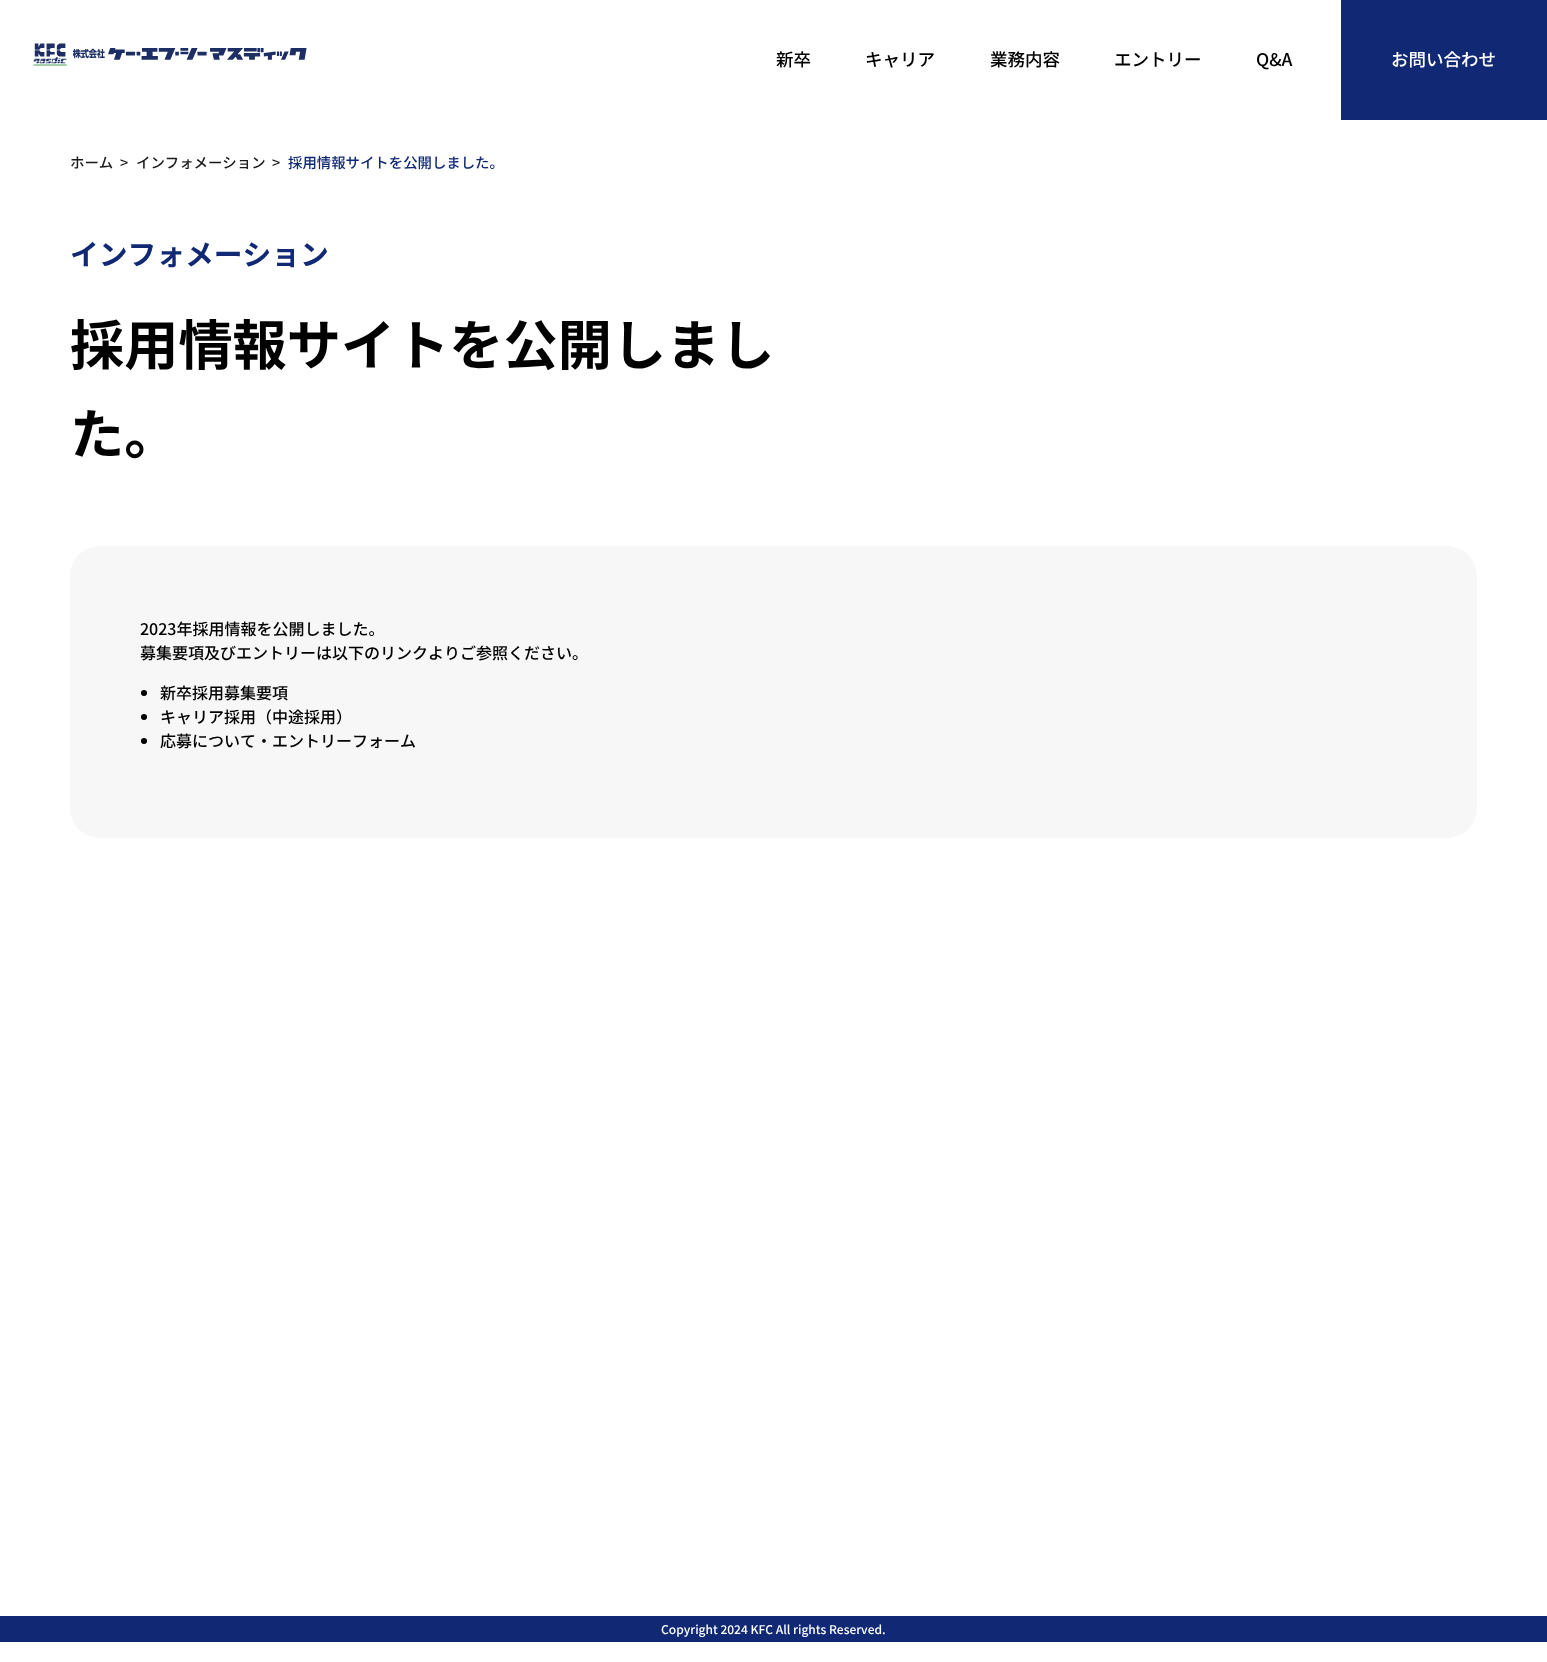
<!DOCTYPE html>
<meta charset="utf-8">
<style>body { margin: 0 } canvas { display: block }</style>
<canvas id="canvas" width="1547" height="1662"></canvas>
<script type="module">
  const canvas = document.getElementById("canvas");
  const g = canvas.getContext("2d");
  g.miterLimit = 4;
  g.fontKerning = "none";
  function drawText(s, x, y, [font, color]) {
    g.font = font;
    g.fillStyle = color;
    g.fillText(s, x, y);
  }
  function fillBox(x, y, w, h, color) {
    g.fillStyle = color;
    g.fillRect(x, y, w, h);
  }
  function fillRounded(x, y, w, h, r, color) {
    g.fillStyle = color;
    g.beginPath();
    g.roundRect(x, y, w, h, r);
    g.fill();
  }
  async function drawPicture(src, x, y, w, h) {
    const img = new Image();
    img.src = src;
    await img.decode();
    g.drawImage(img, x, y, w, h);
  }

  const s1 = ["500 17.5px Noto Sans JP", "#000000"];
  const s2 = ["500 17.5px Noto Sans JP", "#FFFFFF"];
  const s3 = ["500 14.4px Noto Sans JP", "#1A1A1A"];
  const s4 = ["500 14.4px Noto Sans JP", "#112975"];
  const s5 = ["bold 28.75px Noto Sans JP", "#112975"];
  const s6 = ["bold 54.2px Noto Sans JP", "#000000"];
  const s7 = ["500 16px Noto Sans JP", "#000000"];
  const s8 = ["500 12px Noto Sans JP", "#FFFFFF"];

  fillBox(0, 0, 1547, 1662, "#FFFFFF");
  await drawPicture("pic1.png", 33, 43, 274, 23);
  drawText("新卒", 776, 66, s1);
  drawText("キャリア", 865, 66, s1);
  drawText("業務内容", 990, 66, s1);
  drawText("エントリー", 1114, 66, s1);
  drawText("Q&A", 1256, 66, s1);
  fillBox(1341, 0, 206, 120, "#112975");
  drawText("お問い合わせ", 1391, 66, s2);
  drawText("ホーム", 70, 168, s3);
  drawText(">", 120, 168, s3);
  drawText("インフォメーション", 136, 168, s3);
  drawText(">", 272, 168, s3);
  drawText("採用情報サイトを公開しました。", 288, 168, s4);
  drawText("インフォメーション", 70, 265, s5);
  drawText("採用情報サイトを公開しまし", 70, 365, s6);
  drawText("た。", 70, 454, s6);
  fillRounded(70, 546, 1407, 292, 30, "#F7F7F7");
  drawText("2023年採用情報を公開しました。", 140, 635, s7);
  drawText("募集要項及びエントリーは以下のリンクよりご参照ください。", 140, 659, s7);
  g.beginPath();
  g.arc(144, 693, 3, 0, Math.PI * 2);
  g.fill();
  drawText("新卒採用募集要項", 160, 699, s7);
  g.beginPath();
  g.arc(144, 717, 3, 0, Math.PI * 2);
  g.fill();
  drawText("キャリア採用（中途採用）", 160, 723, s7);
  g.beginPath();
  g.arc(144, 741, 3, 0, Math.PI * 2);
  g.fill();
  drawText("応募について・エントリーフォーム", 160, 747, s7);
  fillBox(0, 1616, 1547, 26, "#112975");
  drawText("Copyright 2024 KFC All rights Reserved.", 661, 1634, s8);
</script>
